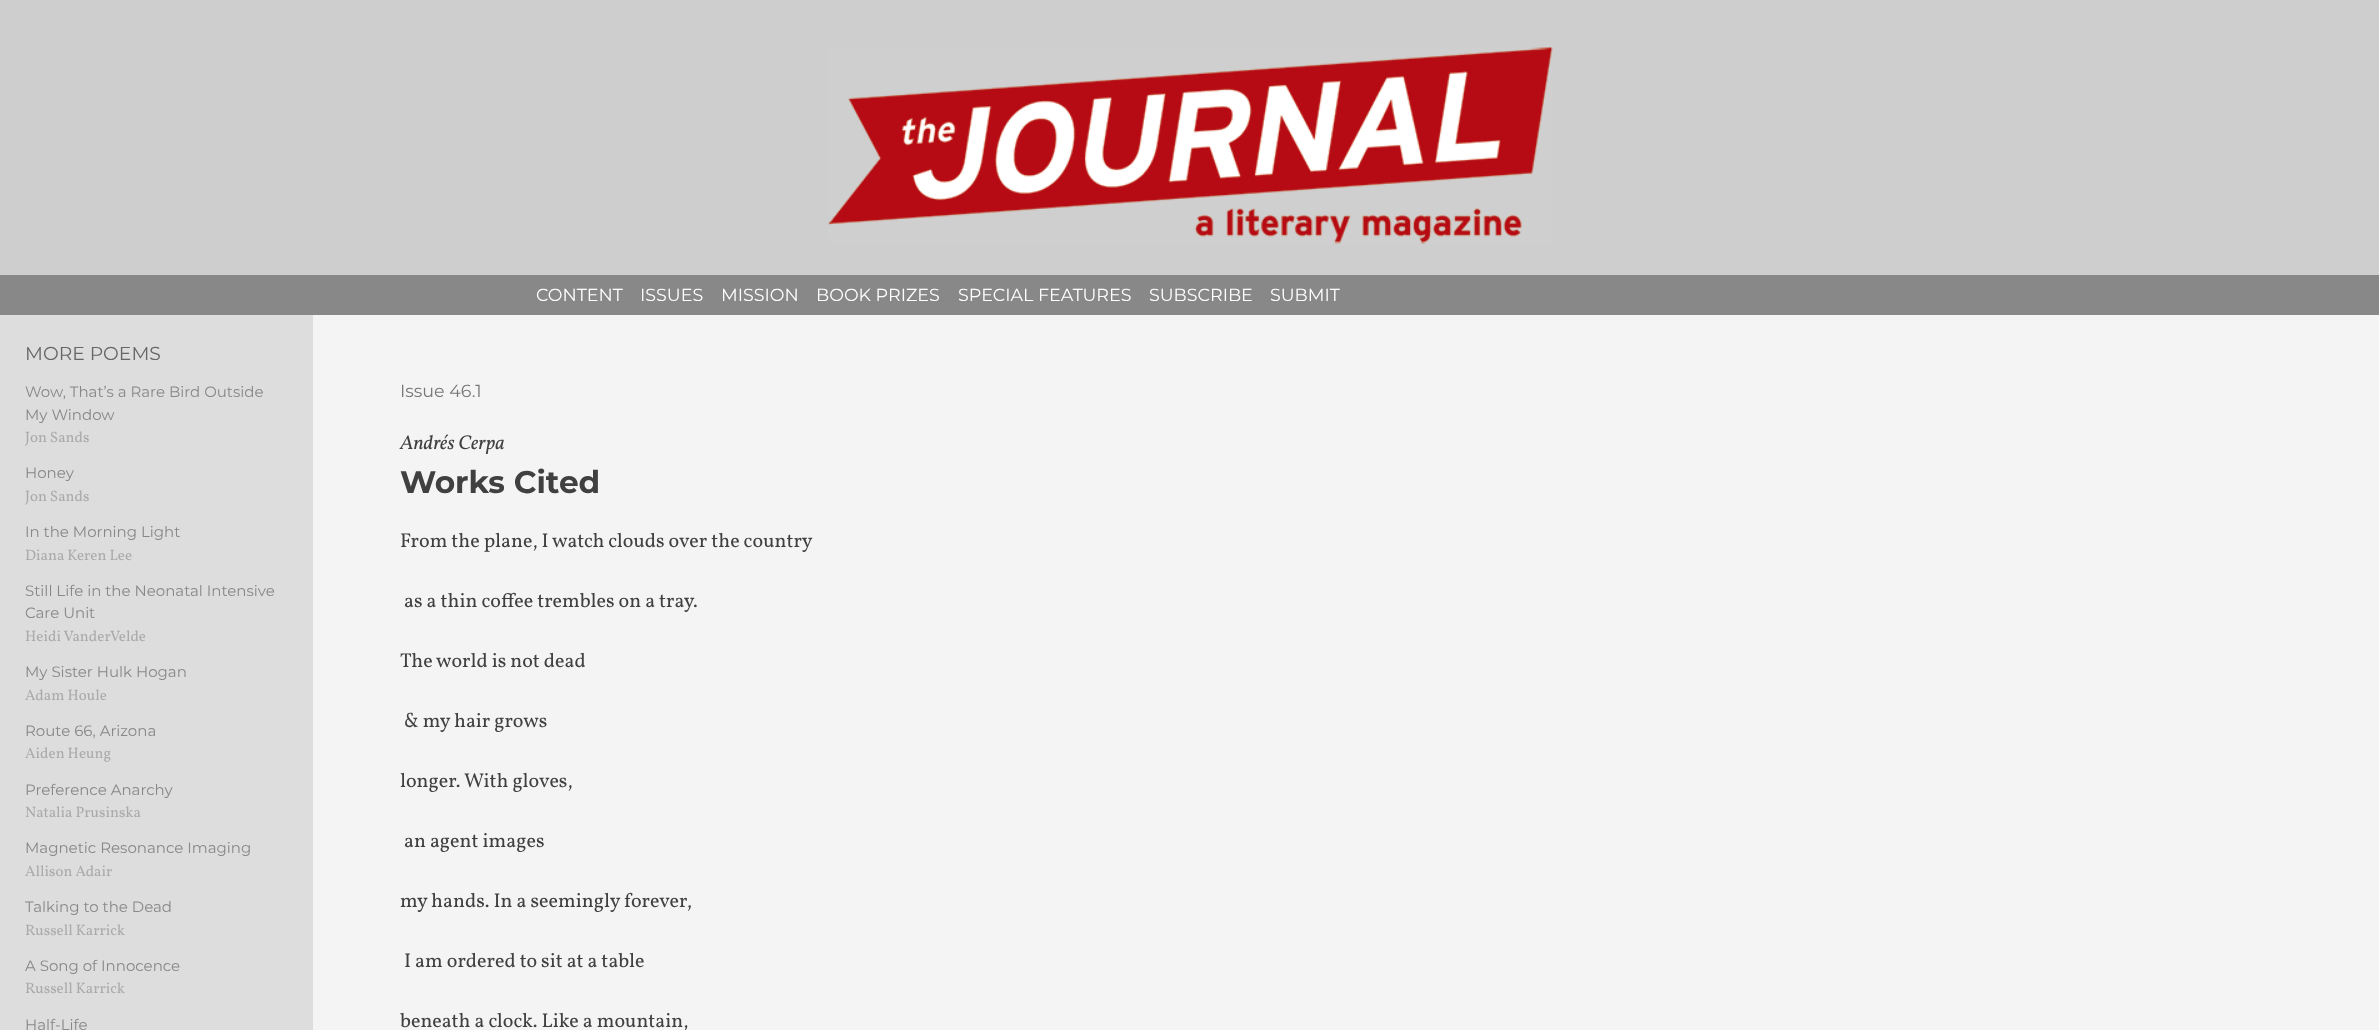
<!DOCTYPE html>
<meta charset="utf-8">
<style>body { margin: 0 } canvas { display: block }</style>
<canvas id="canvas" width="2379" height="1030"></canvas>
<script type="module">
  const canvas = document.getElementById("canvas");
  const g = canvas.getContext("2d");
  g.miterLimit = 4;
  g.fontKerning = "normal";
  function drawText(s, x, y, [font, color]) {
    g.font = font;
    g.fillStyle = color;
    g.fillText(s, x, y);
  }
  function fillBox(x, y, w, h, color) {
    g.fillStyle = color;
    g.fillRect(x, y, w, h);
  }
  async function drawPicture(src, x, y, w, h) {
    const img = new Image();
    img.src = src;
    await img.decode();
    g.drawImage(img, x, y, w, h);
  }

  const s1 = ["17.5px Montserrat", "#FFFFFF"];
  const s2 = ["18.75px Montserrat", "#666666"];
  const s3 = ["15px Montserrat", "#888888"];
  const s4 = ["15px Vollkorn", "#AAAAAA"];
  const s5 = ["17.5px Montserrat", "#777777"];
  const s6 = ["italic 20px Vollkorn", "#404040"];
  const s7 = ["bold 31.25px Montserrat", "#404040"];
  const s8 = ["20px Vollkorn", "#404040"];

  fillBox(0, 0, 2379, 1030, "#CECECE");
  await drawPicture("pic1.png", 828, 47, 725, 197);
  fillBox(0, 275, 2379, 40, "#888888");
  drawText("CONTENT", 536, 301, s1);
  drawText("ISSUES", 640, 301, s1);
  drawText("MISSION", 721, 301, s1);
  drawText("BOOK PRIZES", 816, 301, s1);
  drawText("SPECIAL FEATURES", 958, 301, s1);
  drawText("SUBSCRIBE", 1149, 301, s1);
  drawText("SUBMIT", 1270, 301, s1);
  fillBox(313, 315, 2066, 715, "#F4F4F4");
  fillBox(0, 315, 313, 715, "#DDDDDD");
  drawText("MORE POEMS", 25, 360, s2);
  drawText("Wow, That’s a Rare Bird Outside", 25, 397, s3);
  drawText("My Window", 25, 420, s3);
  drawText("Jon Sands", 25, 442, s4);
  drawText("Honey", 25, 478, s3);
  drawText("Jon Sands", 25, 501, s4);
  drawText("In the Morning Light", 25, 537, s3);
  drawText("Diana Keren Lee", 25, 560, s4);
  drawText("Still Life in the Neonatal Intensive", 25, 596, s3);
  drawText("Care Unit", 25, 618, s3);
  drawText("Heidi VanderVelde", 25, 641, s4);
  drawText("My Sister Hulk Hogan", 25, 677, s3);
  drawText("Adam Houle", 25, 700, s4);
  drawText("Route 66, Arizona", 25, 736, s3);
  drawText("Aiden Heung", 25, 758, s4);
  drawText("Preference Anarchy", 25, 795, s3);
  drawText("Natalia Prusinska", 25, 817, s4);
  drawText("Magnetic Resonance Imaging", 25, 853, s3);
  drawText("Allison Adair", 25, 876, s4);
  drawText("Talking to the Dead", 25, 912, s3);
  drawText("Russell Karrick", 25, 935, s4);
  drawText("A Song of Innocence", 25, 971, s3);
  drawText("Russell Karrick", 25, 993, s4);
  drawText("Half-Life", 25, 1030, s3);
  drawText("Issue 46.1", 400, 397, s5);
  drawText("Andrés Cerpa", 400, 449, s6);
  drawText("Works Cited", 400, 493, s7);
  drawText("From the plane, I watch clouds over the country", 400, 547, s8);
  drawText("as a thin coffee trembles on a tray.", 404, 607, s8);
  drawText("The world is not dead", 400, 667, s8);
  drawText("& my hair grows", 404, 727, s8);
  drawText("longer. With gloves,", 400, 787, s8);
  drawText("an agent images", 404, 847, s8);
  drawText("my hands. In a seemingly forever,", 400, 907, s8);
  drawText("I am ordered to sit at a table", 404, 967, s8);
  drawText("beneath a clock. Like a mountain,", 400, 1027, s8);
</script>
